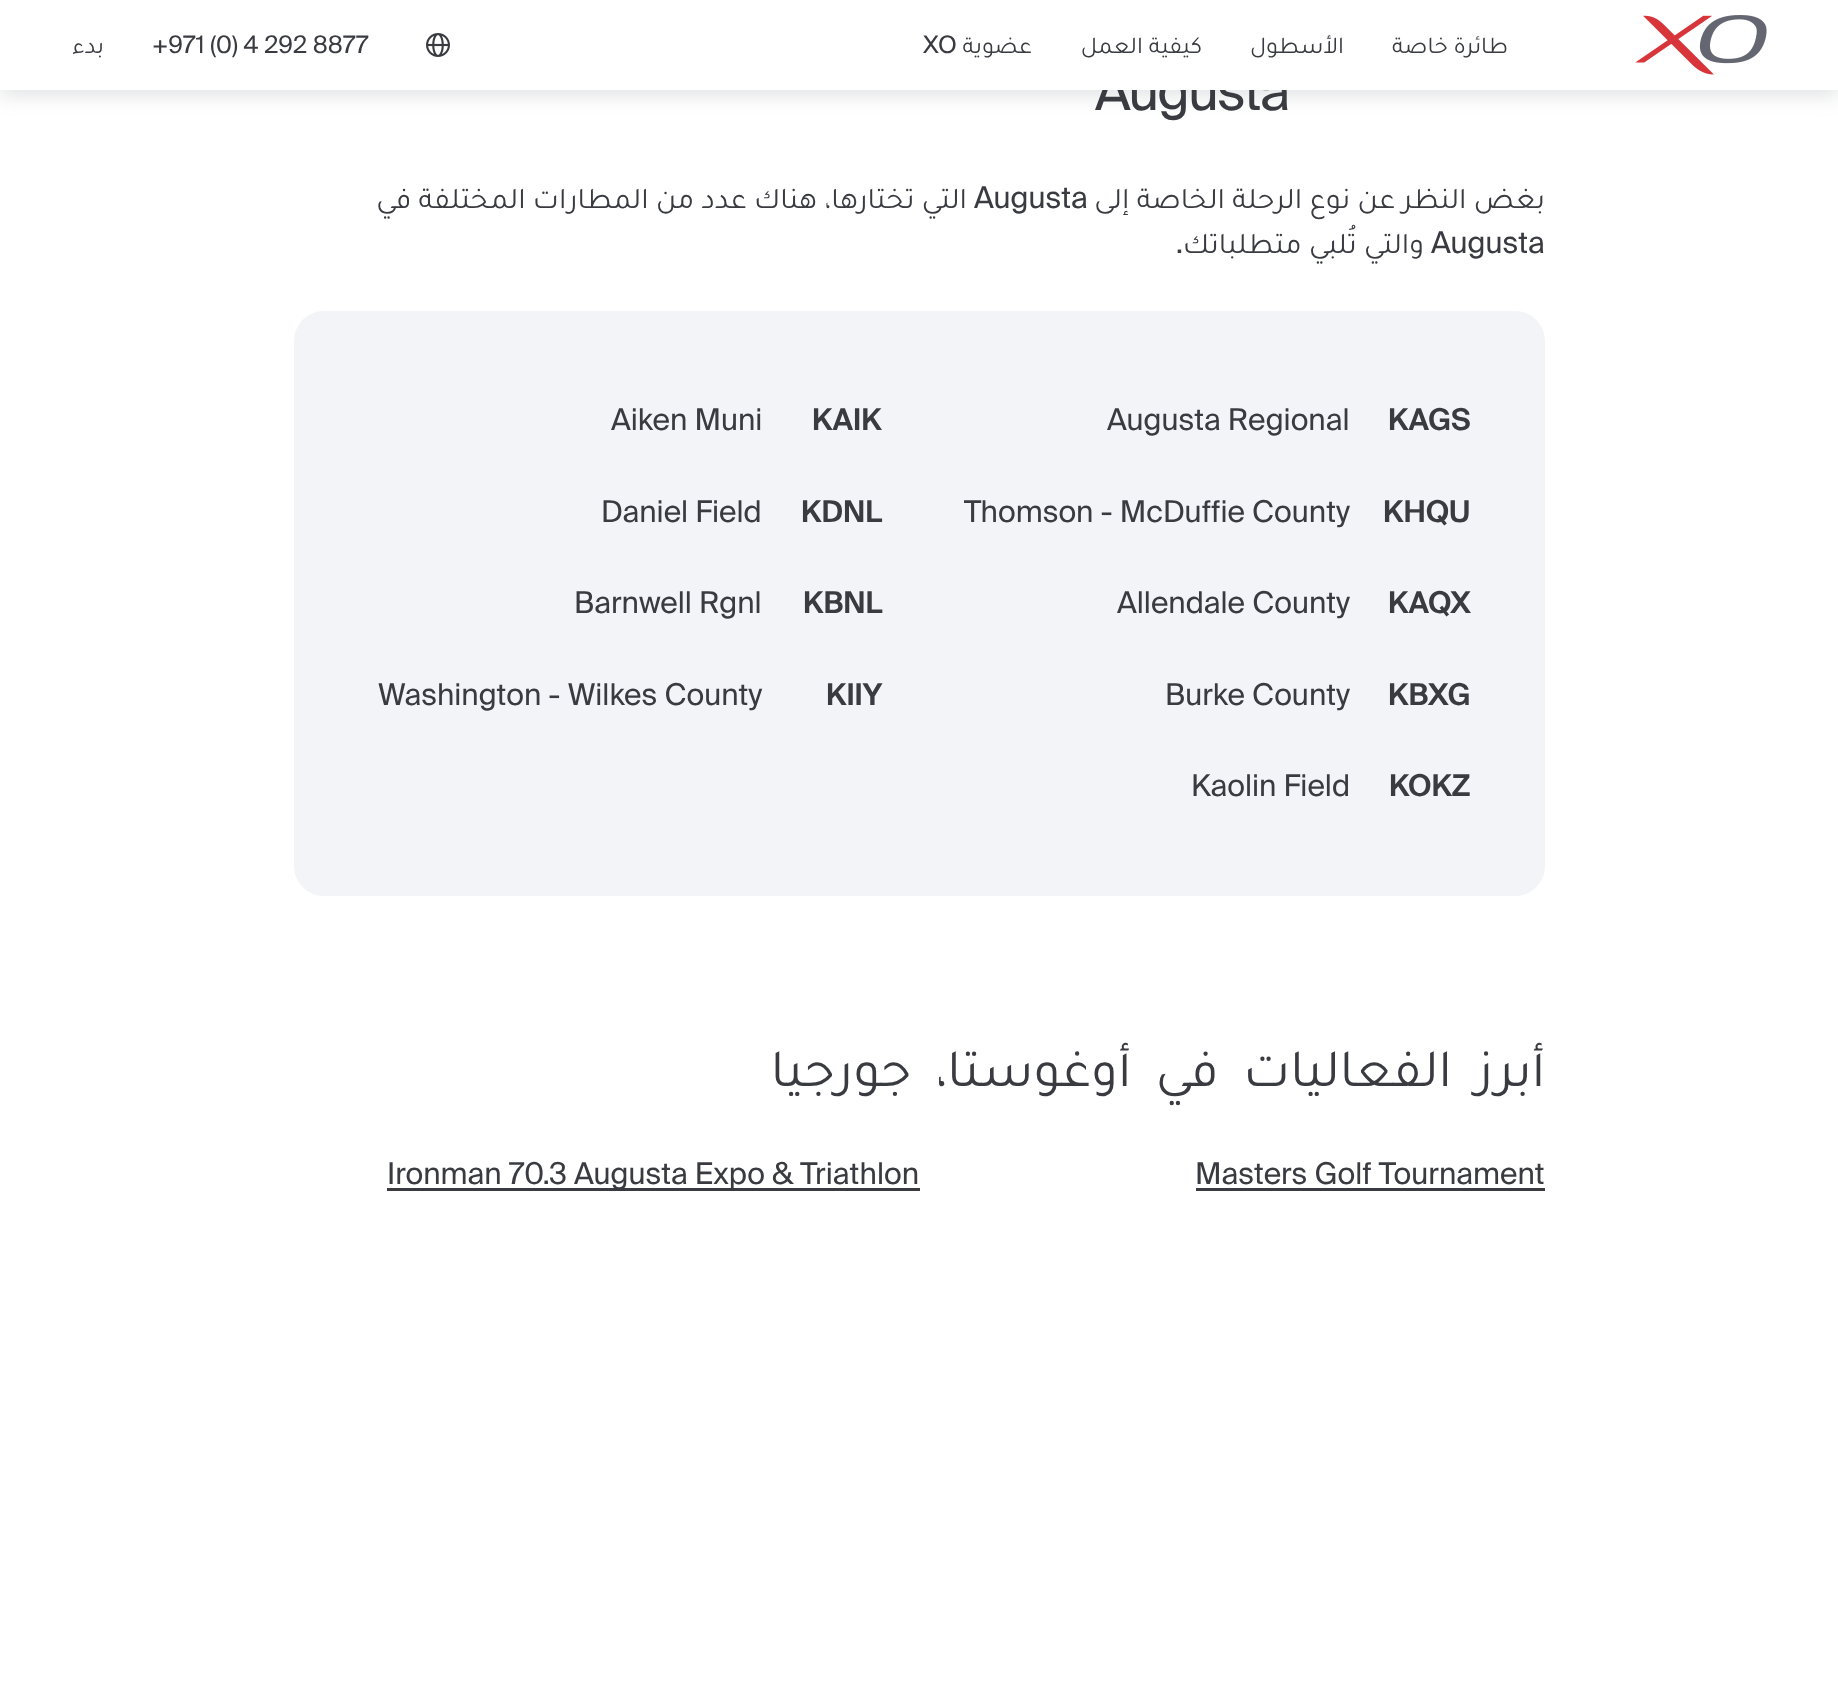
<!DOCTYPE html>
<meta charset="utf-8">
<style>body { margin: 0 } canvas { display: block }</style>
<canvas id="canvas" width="1838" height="1690"></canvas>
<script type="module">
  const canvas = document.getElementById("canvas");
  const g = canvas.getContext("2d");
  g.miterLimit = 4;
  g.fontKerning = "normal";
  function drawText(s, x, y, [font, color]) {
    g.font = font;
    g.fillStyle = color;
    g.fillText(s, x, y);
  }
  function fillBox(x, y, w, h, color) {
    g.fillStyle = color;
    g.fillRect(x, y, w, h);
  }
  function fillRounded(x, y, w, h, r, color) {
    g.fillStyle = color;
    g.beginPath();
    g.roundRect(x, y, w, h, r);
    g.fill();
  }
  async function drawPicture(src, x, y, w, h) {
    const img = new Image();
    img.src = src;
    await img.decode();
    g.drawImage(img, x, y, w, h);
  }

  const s1 = ["54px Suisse", "#393B41"];
  const s2 = ["24px Tajawal", "#393B41"];
  const s3 = ["24px Suisse", "#393B41"];
  const s4 = ["30px Tajawal", "#393B41"];
  const s5 = ["30px Suisse", "#393B41"];
  const s6 = ["600 30px Suisse", "#393B41"];
  const s7 = ["54px Tajawal", "#393B41"];

  fillBox(0, 0, 1838, 1690, "#FFFFFF");
  g.fillStyle = "rgba(101, 104, 114, 0.2)";
  g.filter = "blur(10px)";
  g.beginPath();
  g.rect(0, 5, 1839, 90);
  g.fill();
  g.filter = "none";
  g.letterSpacing = "-1.6px";
  drawText("Augusta", 1095, 110, s1);
  fillBox(0, 0, 1838, 90, "#FFFFFF");
  g.letterSpacing = "0px";
  g.direction = "rtl";
  drawText("بدء", 104, 53, s2);
  g.direction = "ltr";
  drawText("+971 (0) 4 292 8877", 152, 53, s3);
  await drawPicture("pic1.png", 426, 33, 24, 24);
  drawText("XO", 923, 53, s3);
  g.direction = "rtl";
  drawText("عضوية", 1032, 53, s2);
  drawText("كيفية العمل", 1202, 53, s2);
  drawText("الأسطول", 1344, 53, s2);
  drawText("طائرة خاصة", 1508, 53, s2);
  await drawPicture("pic2.png", 1635, 15, 132, 60);
  drawText("التي تختارها، هناك عدد من المطارات المختلفة في", 967, 208, s4);
  g.direction = "ltr";
  drawText("Augusta", 974, 208, s5);
  g.direction = "rtl";
  drawText("بغض النظر عن نوع الرحلة الخاصة إلى", 1545, 208, s4);
  drawText(".", 1183, 253, s5);
  drawText("والتي تُلبي متطلباتك", 1424, 253, s4);
  g.direction = "ltr";
  drawText("Augusta", 1431, 253, s5);
  fillRounded(294, 311, 1251, 585, 30, "#F3F4F8");
  drawText("Aiken Muni", 611, 430, s5);
  drawText("KAIK", 812, 430, s6);
  drawText("Augusta Regional", 1107, 430, s5);
  drawText("KAGS", 1388, 430, s6);
  drawText("Daniel Field", 601, 522, s5);
  drawText("KDNL", 801, 522, s6);
  drawText("Thomson - McDuffie County", 964, 522, s5);
  drawText("KHQU", 1383, 522, s6);
  drawText("Barnwell Rgnl", 574, 613, s5);
  drawText("KBNL", 803, 613, s6);
  drawText("Allendale County", 1117, 613, s5);
  drawText("KAQX", 1388, 613, s6);
  drawText("Washington - Wilkes County", 378, 705, s5);
  drawText("KIIY", 826, 705, s6);
  drawText("Burke County", 1165, 705, s5);
  drawText("KBXG", 1388, 705, s6);
  drawText("Kaolin Field", 1191, 796, s5);
  drawText("KOKZ", 1389, 796, s6);
  g.letterSpacing = "-1.6px";
  g.wordSpacing = "13px";
  g.direction = "rtl";
  drawText("أبرز الفعاليات في أوغوستا، جورجيا", 1545, 1086, s7);
  fillBox(387, 1188, 533, 3, "#393B41");
  g.letterSpacing = "0px";
  g.wordSpacing = "0px";
  g.direction = "ltr";
  drawText("Ironman 70.3 Augusta Expo & Triathlon", 387, 1184, s5);
  drawText("Masters Golf Tournament", 1195, 1184, s5);
  fillBox(1196, 1188, 349, 3, "#393B41");
</script>
